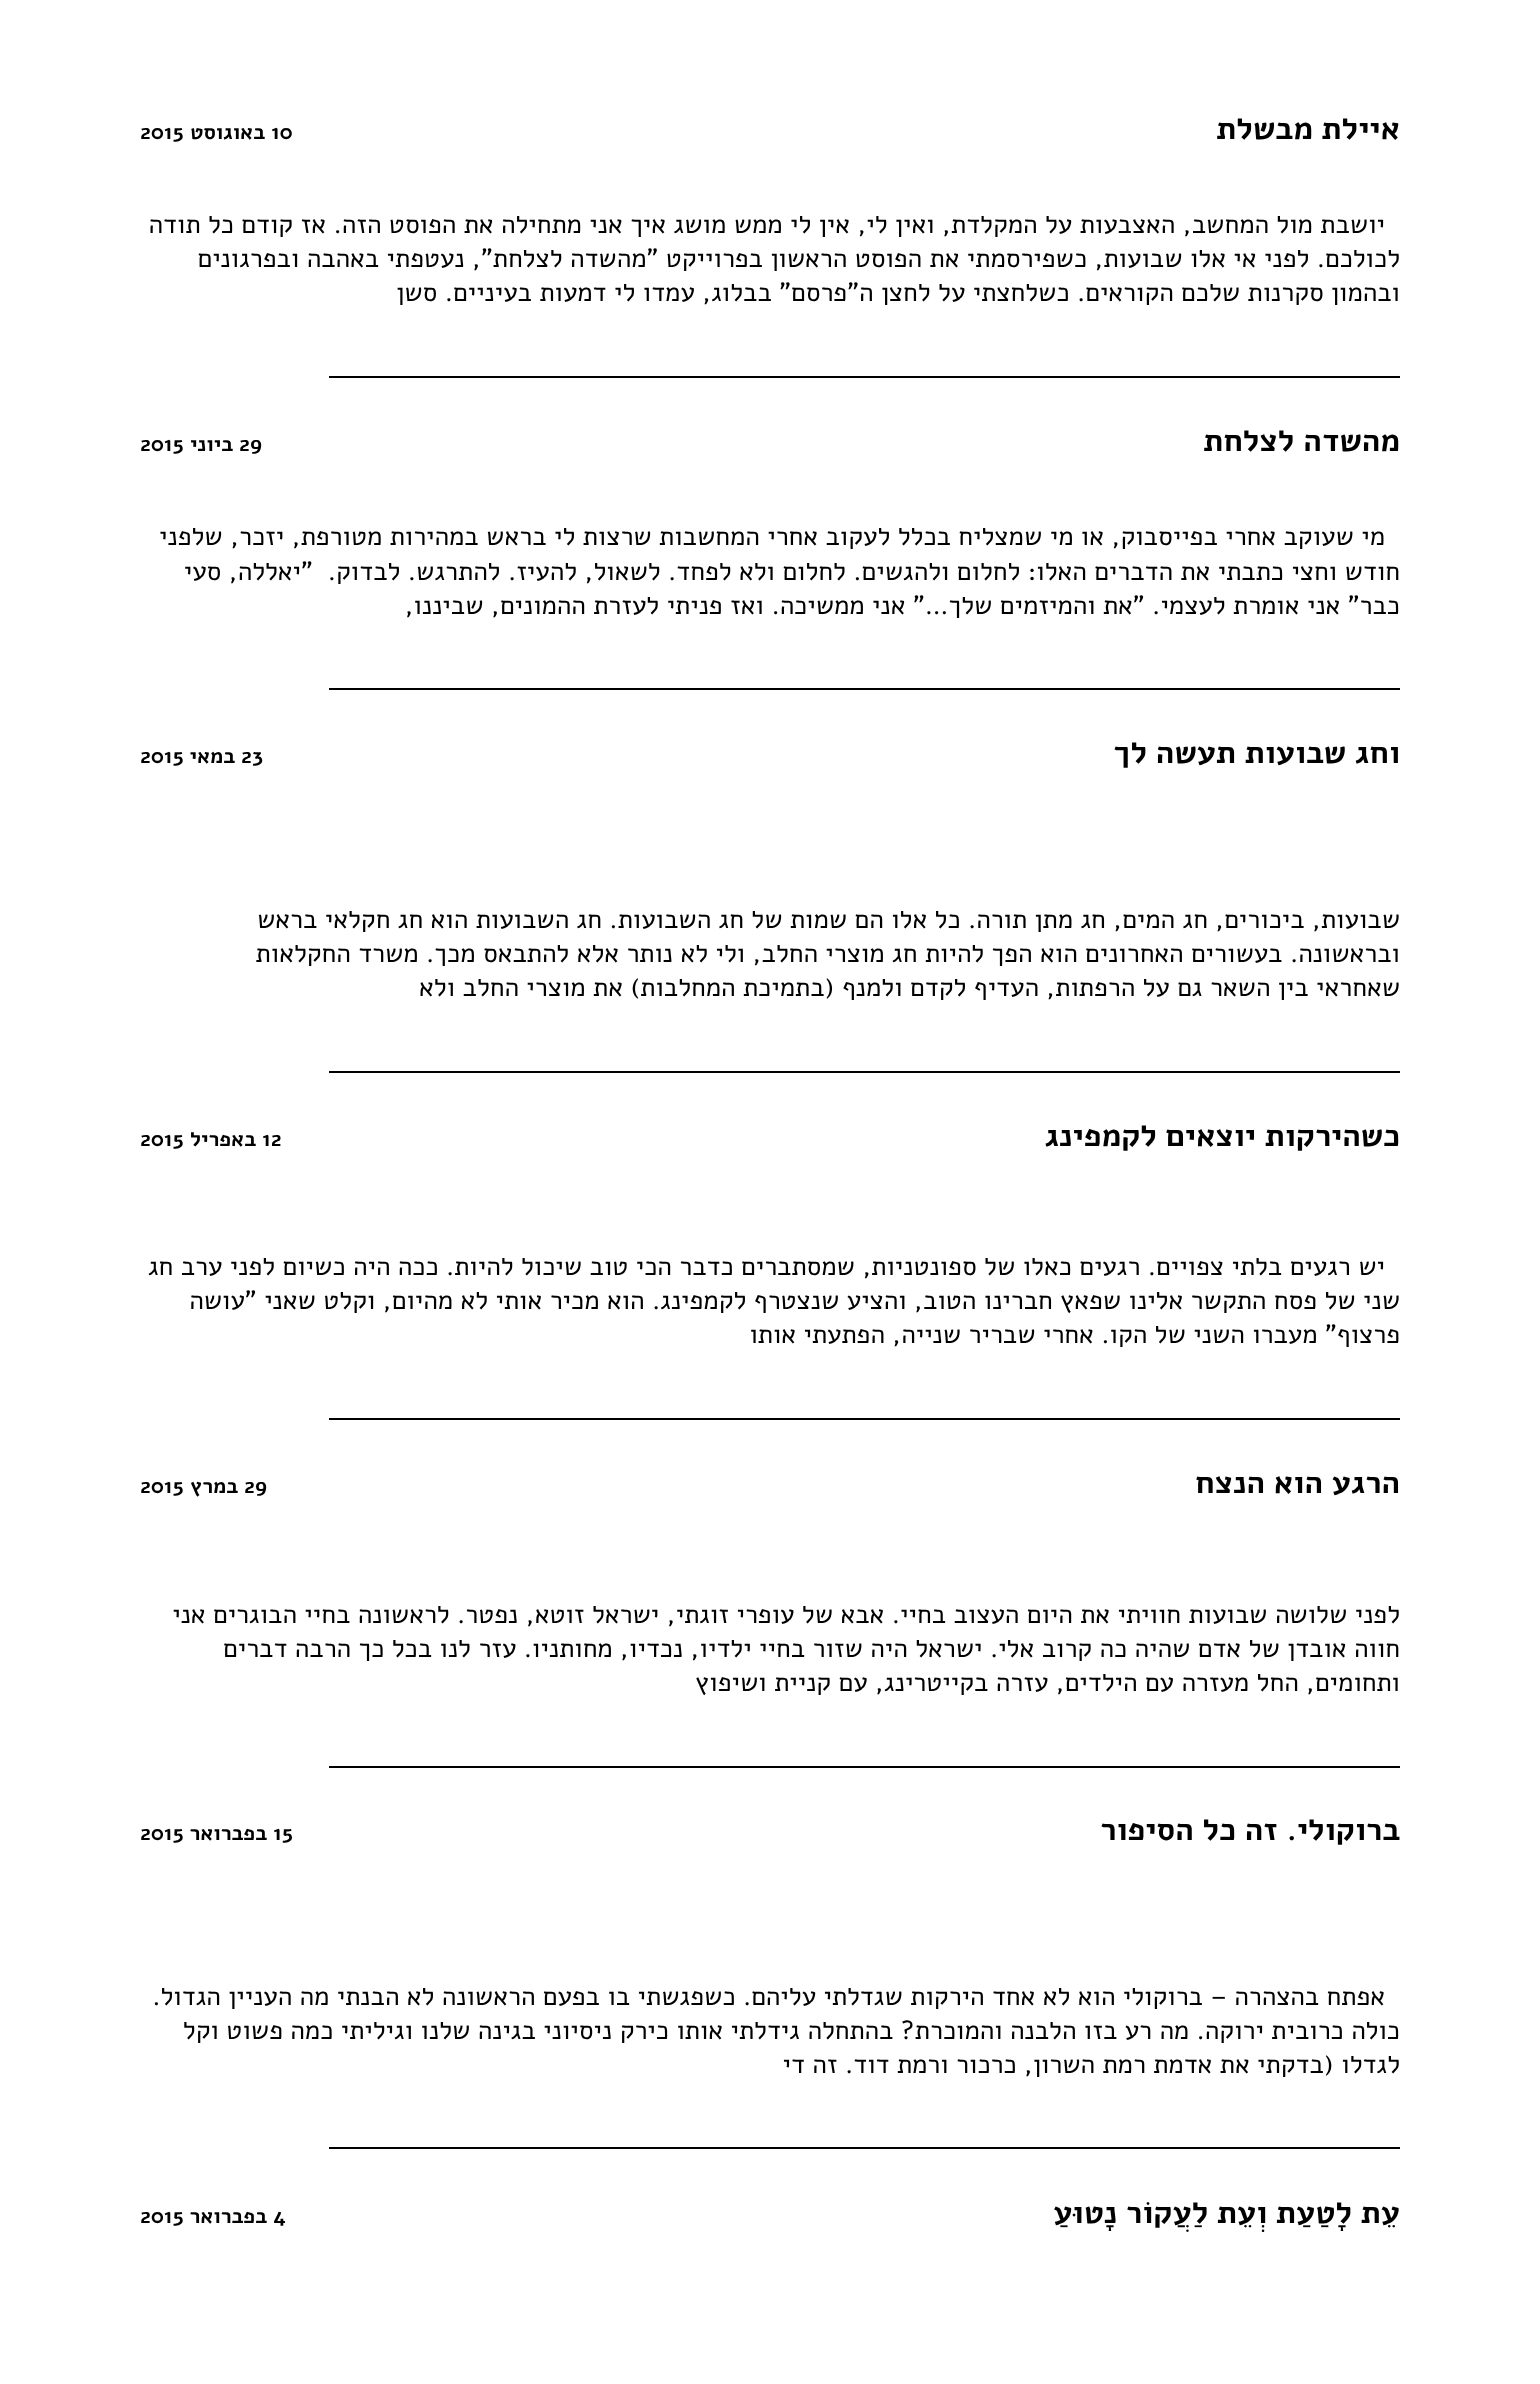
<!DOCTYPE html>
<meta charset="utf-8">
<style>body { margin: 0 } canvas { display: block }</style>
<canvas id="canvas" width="1540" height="2384"></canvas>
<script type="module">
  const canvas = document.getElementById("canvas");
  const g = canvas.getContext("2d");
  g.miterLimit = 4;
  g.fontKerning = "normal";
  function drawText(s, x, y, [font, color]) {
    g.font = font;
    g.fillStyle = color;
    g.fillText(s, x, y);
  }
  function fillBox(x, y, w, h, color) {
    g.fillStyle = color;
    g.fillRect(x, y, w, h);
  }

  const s1 = ["bold 31.5px Alef", "#000000"];
  const s2 = ["bold 21px Alef", "#000000"];
  const s3 = ["26.25px Alef", "#000000"];

  fillBox(0, 0, 1540, 2384, "#FFFFFF");
  g.direction = "rtl";
  drawText("איילת מבשלת", 1400, 139, s1);
  g.direction = "ltr";
  drawText("10", 271, 139, s2);
  g.direction = "rtl";
  drawText("באוגוסט", 265, 139, s2);
  g.direction = "ltr";
  drawText("2015", 140, 139, s2);
  g.direction = "rtl";
  drawText("יושבת מול המחשב, האצבעות על המקלדת, ואין לי, אין לי ממש מושג איך אני מתחילה את הפוסט הזה. אז קודם כל תודה", 1385, 233, s3);
  drawText("לכולכם. לפני אי אלו שבועות, כשפירסמתי את הפוסט הראשון בפרוייקט \"מהשדה לצלחת\", נעטפתי באהבה ובפרגונים", 1400, 267, s3);
  drawText("ובהמון סקרנות שלכם הקוראים. כשלחצתי על לחצן ה\"פרסם\" בבלוג, עמדו לי דמעות בעיניים. סשן", 1400, 301, s3);
  fillBox(329, 376, 1071, 2, "#000000");
  drawText("מהשדה לצלחת", 1400, 451, s1);
  g.direction = "ltr";
  drawText("29", 239, 451, s2);
  g.direction = "rtl";
  drawText("ביוני", 233, 451, s2);
  g.direction = "ltr";
  drawText("2015", 140, 451, s2);
  g.direction = "rtl";
  drawText("מי שעוקב אחרי בפייסבוק, או מי שמצליח בכלל לעקוב אחרי המחשבות שרצות לי בראש במהירות מטורפת, יזכר, שלפני", 1385, 545, s3);
  drawText("חודש וחצי כתבתי את הדברים האלו: לחלום ולהגשים. לחלום ולא לפחד. לשאול, להעיז. להתרגש. לבדוק.  \"יאללה, סעי", 1400, 580, s3);
  drawText("כבר\" אני אומרת לעצמי. \"את והמיזמים שלך…\" אני ממשיכה. ואז פניתי לעזרת ההמונים, שביננו,", 1400, 614, s3);
  fillBox(329, 688, 1071, 2, "#000000");
  drawText("וחג שבועות תעשה לך", 1400, 763, s1);
  g.direction = "ltr";
  drawText("23", 241, 763, s2);
  g.direction = "rtl";
  drawText("במאי", 235, 763, s2);
  g.direction = "ltr";
  drawText("2015", 140, 763, s2);
  g.direction = "rtl";
  drawText("שבועות, ביכורים, חג המים, חג מתן תורה. כל אלו הם שמות של חג השבועות. חג השבועות הוא חג חקלאי בראש", 1400, 928, s3);
  drawText("ובראשונה. בעשורים האחרונים הוא הפך להיות חג מוצרי החלב, ולי לא נותר אלא להתבאס מכך. משרד החקלאות", 1400, 962, s3);
  drawText("שאחראי בין השאר גם על הרפתות, העדיף לקדם ולמנף (בתמיכת המחלבות) את מוצרי החלב ולא", 1400, 996, s3);
  fillBox(329, 1071, 1071, 2, "#000000");
  drawText("כשהירקות יוצאים לקמפינג", 1400, 1146, s1);
  g.direction = "ltr";
  drawText("12", 262, 1146, s2);
  g.direction = "rtl";
  drawText("באפריל", 256, 1146, s2);
  g.direction = "ltr";
  drawText("2015", 140, 1146, s2);
  g.direction = "rtl";
  drawText("יש רגעים בלתי צפויים. רגעים כאלו של ספונטניות, שמסתברים כדבר הכי טוב שיכול להיות. ככה היה כשיום לפני ערב חג", 1385, 1275, s3);
  drawText("שני של פסח התקשר אלינו שפאץ חברינו הטוב, והציע שנצטרף לקמפינג. הוא מכיר אותי לא מהיום, וקלט שאני \"עושה", 1400, 1309, s3);
  drawText("פרצוף\" מעברו השני של הקו. אחרי שבריר שנייה, הפתעתי אותו", 1400, 1343, s3);
  fillBox(329, 1418, 1071, 2, "#000000");
  drawText("הרגע הוא הנצח", 1400, 1493, s1);
  g.direction = "ltr";
  drawText("29", 244, 1493, s2);
  g.direction = "rtl";
  drawText("במרץ", 238, 1493, s2);
  g.direction = "ltr";
  drawText("2015", 140, 1493, s2);
  g.direction = "rtl";
  drawText("לפני שלושה שבועות חוויתי את היום העצוב בחיי. אבא של עופרי זוגתי, ישראל זוטא, נפטר. לראשונה בחיי הבוגרים אני", 1400, 1623, s3);
  drawText("חווה אובדן של אדם שהיה כה קרוב אלי. ישראל היה שזור בחיי ילדיו, נכדיו, מחותניו. עזר לנו בכל כך הרבה דברים", 1400, 1657, s3);
  drawText("ותחומים, החל מעזרה עם הילדים, עזרה בקייטרינג, עם קניית ושיפוץ", 1400, 1691, s3);
  fillBox(329, 1766, 1071, 2, "#000000");
  drawText("ברוקולי. זה כל הסיפור", 1400, 1840, s1);
  g.direction = "ltr";
  drawText("15", 273, 1840, s2);
  g.direction = "rtl";
  drawText("בפברואר", 267, 1840, s2);
  g.direction = "ltr";
  drawText("2015", 140, 1840, s2);
  g.direction = "rtl";
  drawText("אפתח בהצהרה – ברוקולי הוא לא אחד הירקות שגדלתי עליהם. כשפגשתי בו בפעם הראשונה לא הבנתי מה העניין הגדול.", 1385, 2005, s3);
  drawText("כולה כרובית ירוקה. מה רע בזו הלבנה והמוכרת? בהתחלה גידלתי אותו כירק ניסיוני בגינה שלנו וגיליתי כמה פשוט וקל", 1400, 2039, s3);
  drawText("לגדלו (בדקתי את אדמת רמת השרון, כרכור ורמת דוד. זה די", 1400, 2073, s3);
  fillBox(329, 2147, 1071, 2, "#000000");
  drawText("עֵת לָטַעַת וְעֵת לַעֲקוֹר נָטוּעַ", 1400, 2223, s1);
  g.direction = "ltr";
  drawText("4", 273, 2223, s2);
  g.direction = "rtl";
  drawText("בפברואר", 267, 2223, s2);
  g.direction = "ltr";
  drawText("2015", 140, 2223, s2);
</script>
